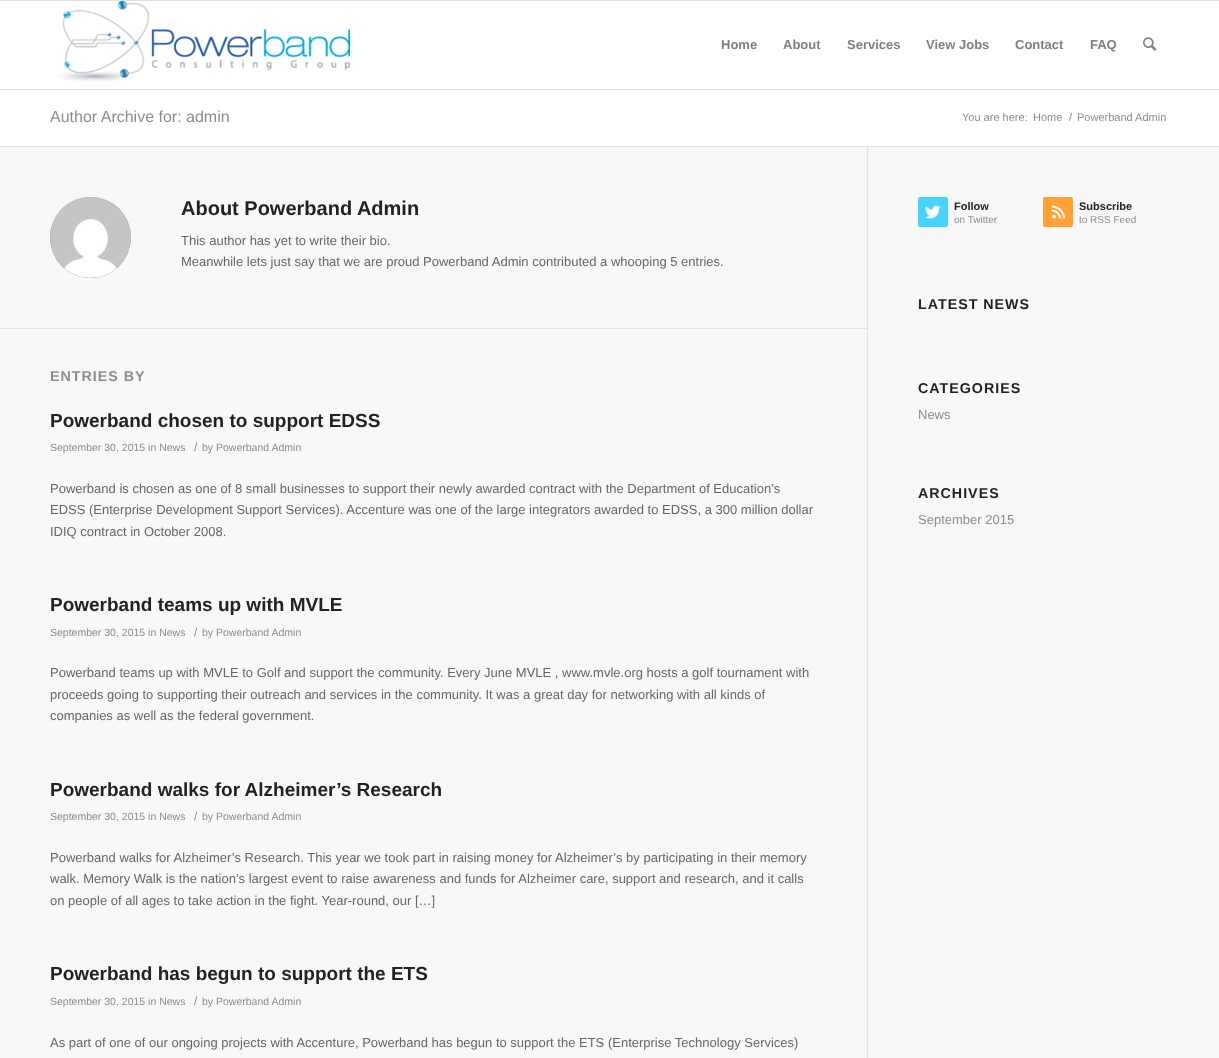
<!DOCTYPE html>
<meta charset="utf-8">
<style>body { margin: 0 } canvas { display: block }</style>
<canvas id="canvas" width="1219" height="1058"></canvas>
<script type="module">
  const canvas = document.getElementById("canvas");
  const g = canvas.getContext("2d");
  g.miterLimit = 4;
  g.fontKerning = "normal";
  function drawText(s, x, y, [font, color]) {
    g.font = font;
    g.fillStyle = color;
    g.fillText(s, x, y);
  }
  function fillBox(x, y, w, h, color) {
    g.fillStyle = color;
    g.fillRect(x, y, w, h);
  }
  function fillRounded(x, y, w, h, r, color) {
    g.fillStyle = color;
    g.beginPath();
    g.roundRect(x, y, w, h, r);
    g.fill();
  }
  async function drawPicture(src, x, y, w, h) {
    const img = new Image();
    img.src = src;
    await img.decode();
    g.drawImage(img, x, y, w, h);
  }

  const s1 = ["bold 13px Liberation Sans", "#808080"];
  const s2 = ["16px Liberation Sans", "#8D8D8D"];
  const s3 = ["11px Liberation Sans", "#8D8D8D"];
  const s4 = ["bold 20px Liberation Sans", "#222222"];
  const s5 = ["13px Liberation Sans", "#666666"];
  const s6 = ["bold 14.25px Liberation Sans", "#8D8D8D"];
  const s7 = ["bold 19px Liberation Sans", "#222222"];
  const s8 = ["10.5px Liberation Sans", "#8D8D8D"];
  const s9 = ["12px Liberation Sans", "#8D8D8D"];
  const s10 = ["bold 11px Liberation Sans", "#222222"];
  const s11 = ["10px Liberation Sans", "#8D8D8D"];
  const s12 = ["bold 14.25px Liberation Sans", "#222222"];
  const s13 = ["13px Liberation Sans", "#8D8D8D"];

  fillBox(0, 0, 1219, 1058, "#FFFFFF");
  fillBox(0, 0, 1219, 1, "#E1E1E1");
  fillBox(0, 89, 1219, 1, "#E1E1E1");
  await drawPicture("pic1.png", 56, 1, 294, 81);
  drawText("Home", 721, 49, s1);
  drawText("About", 783, 49, s1);
  drawText("Services", 847, 49, s1);
  drawText("View Jobs", 926, 49, s1);
  drawText("Contact", 1015, 49, s1);
  drawText("FAQ", 1090, 49, s1);
  await drawPicture("pic2.png", 1143, 37, 14, 14);
  drawText("Author Archive for: admin", 50, 122, s2);
  drawText("You are here:", 962, 121, s3);
  drawText("Home", 1033, 121, s3);
  drawText("/", 1069, 121, s3);
  drawText("Powerband Admin", 1077, 121, s3);
  fillBox(0, 147, 1219, 911, "#F8F8F8");
  fillBox(0, 146, 1219, 1, "#E1E1E1");
  fillBox(867, 147, 1, 911, "#E1E1E1");
  g.fillStyle = "#8D8D8D";
  g.beginPath();
  g.arc(90.5, 237.5, 40.5, 0, Math.PI * 2);
  g.fill();
  await drawPicture("pic3.png", 50, 197, 81, 81);
  drawText("About Powerband Admin", 181, 215, s4);
  drawText("This author has yet to write their bio.", 181, 245, s5);
  drawText("Meanwhile lets just say that we are proud Powerband Admin contributed a whooping 5 entries.", 181, 266, s5);
  fillBox(0, 328, 867, 1, "#E1E1E1");
  g.letterSpacing = "1px";
  drawText("ENTRIES BY", 50, 381, s6);
  g.letterSpacing = "0px";
  drawText("Powerband chosen to support EDSS", 50, 427, s7);
  drawText("September 30, 2015 in News", 50, 451, s8);
  drawText("/", 194, 451, s9);
  drawText("by Powerband Admin", 202, 451, s8);
  drawText("Powerband is chosen as one of 8 small businesses to support their newly awarded contract with the Department of Education’s", 50, 493, s5);
  drawText("EDSS (Enterprise Development Support Services). Accenture was one of the large integrators awarded to EDSS, a 300 million dollar", 50, 514, s5);
  drawText("IDIQ contract in October 2008.", 50, 536, s5);
  drawText("Powerband teams up with MVLE", 50, 611, s7);
  drawText("September 30, 2015 in News", 50, 636, s8);
  drawText("/", 194, 636, s9);
  drawText("by Powerband Admin", 202, 636, s8);
  drawText("Powerband teams up with MVLE to Golf and support the community. Every June MVLE , www.mvle.org hosts a golf tournament with", 50, 677, s5);
  drawText("proceeds going to supporting their outreach and services in the community. It was a great day for networking with all kinds of", 50, 699, s5);
  drawText("companies as well as the federal government.", 50, 720, s5);
  drawText("Powerband walks for Alzheimer’s Research", 50, 796, s7);
  drawText("September 30, 2015 in News", 50, 820, s8);
  drawText("/", 194, 820, s9);
  drawText("by Powerband Admin", 202, 820, s8);
  drawText("Powerband walks for Alzheimer’s Research. This year we took part in raising money for Alzheimer’s by participating in their memory", 50, 862, s5);
  drawText("walk. Memory Walk is the nation’s largest event to raise awareness and funds for Alzheimer care, support and research, and it calls", 50, 883, s5);
  drawText("on people of all ages to take action in the fight. Year-round, our […]", 50, 905, s5);
  drawText("Powerband has begun to support the ETS", 50, 980, s7);
  drawText("September 30, 2015 in News", 50, 1005, s8);
  drawText("/", 194, 1005, s9);
  drawText("by Powerband Admin", 202, 1005, s8);
  drawText("As part of one of our ongoing projects with Accenture, Powerband has begun to support the ETS (Enterprise Technology Services)", 50, 1047, s5);
  fillRounded(918, 197, 30, 30, 2, "#46D4FE");
  await drawPicture("pic4.png", 925, 205, 16, 14);
  drawText("Follow", 954, 210, s10);
  drawText("on Twitter", 954, 223, s11);
  fillRounded(1043, 197, 30, 30, 2, "#FFA133");
  await drawPicture("pic5.png", 1052, 205, 13, 14);
  drawText("Subscribe", 1079, 210, s10);
  drawText("to RSS Feed", 1079, 223, s11);
  g.letterSpacing = "1px";
  drawText("LATEST NEWS", 918, 309, s12);
  drawText("CATEGORIES", 918, 393, s12);
  g.letterSpacing = "0px";
  drawText("News", 918, 419, s13);
  g.letterSpacing = "1px";
  drawText("ARCHIVES", 918, 498, s12);
  g.letterSpacing = "0px";
  drawText("September 2015", 918, 524, s13);
</script>
